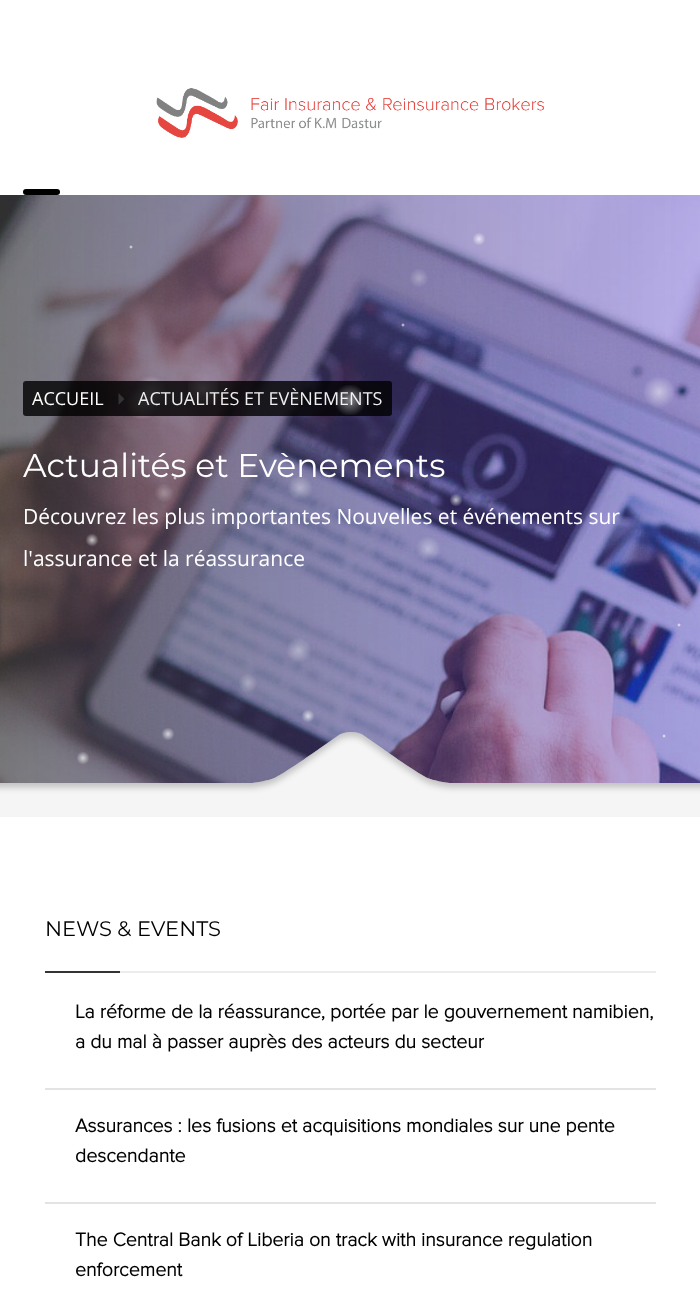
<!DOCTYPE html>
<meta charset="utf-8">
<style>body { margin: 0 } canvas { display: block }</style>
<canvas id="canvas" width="700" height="1315"></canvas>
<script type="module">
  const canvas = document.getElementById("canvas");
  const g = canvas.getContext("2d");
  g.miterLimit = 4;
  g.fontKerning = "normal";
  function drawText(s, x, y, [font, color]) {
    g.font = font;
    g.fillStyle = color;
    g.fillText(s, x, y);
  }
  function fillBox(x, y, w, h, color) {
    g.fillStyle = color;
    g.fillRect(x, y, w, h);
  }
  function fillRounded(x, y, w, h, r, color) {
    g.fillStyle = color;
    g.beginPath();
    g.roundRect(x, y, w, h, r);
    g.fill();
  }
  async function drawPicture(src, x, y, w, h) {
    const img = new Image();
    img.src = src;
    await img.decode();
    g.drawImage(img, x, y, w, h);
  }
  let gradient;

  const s1 = ["18px Open Sans", "#EEEEEE"];
  const s2 = ["18px Open Sans", "#FFFFFF"];
  const s3 = ["33px Montserrat", "#FFFFFF"];
  const s4 = ["21px Open Sans", "#FFFFFF"];
  const s5 = ["21px Montserrat", "#000000"];
  const s6 = ["bold 19.5px Proxima Nova", "#000000"];

  fillBox(0, 0, 700, 1315, "#FFFFFF");
  await drawPicture("pic1.png", 156, 88, 388, 50);
  fillRounded(23, 189, 37, 6, 3, "#000000");
  await drawPicture("pic2.png", 0, 195, 700, 588);
  gradient = g.createRadialGradient(479, 239, 0, 479, 239, 11);
  gradient.addColorStop(0, "#E5E3F1");
  gradient.addColorStop(0.6, "#A9A0CF");
  g.fillStyle = gradient;
  g.fillRect(473, 233, 12, 12);
  gradient = g.createRadialGradient(131, 247, 0, 131, 247, 3.2);
  gradient.addColorStop(0, "#F2F2F4");
  gradient.addColorStop(0.6, "#807F91");
  g.fillStyle = gradient;
  g.fillRect(129, 245, 5, 4);
  fillRounded(23, 381, 369, 35, 3, "rgba(0, 0, 0, 0.8)");
  gradient = g.createRadialGradient(203, 389, 0, 203, 389, 32);
  gradient.addColorStop(0, "rgba(255, 255, 255, 0.1)");
  gradient.addColorStop(0.6, "rgba(255, 255, 255, 0)");
  g.fillStyle = gradient;
  g.fillRect(188, 374, 30, 30);
  drawText("ACTUALITÉS ET EVÈNEMENTS", 138, 405, s1);
  gradient = g.createRadialGradient(350, 400, 0, 350, 400, 27);
  gradient.addColorStop(0, "rgba(255, 255, 255, 0.5)");
  gradient.addColorStop(0.6, "rgba(255, 255, 255, 0)");
  g.fillStyle = gradient;
  g.fillRect(335, 385, 30, 30);
  drawText("ACCUEIL", 32, 405, s2);
  g.fillStyle = "#343434";
  g.beginPath();
  g.moveTo(118.5, 405);
  g.lineTo(118.5, 393);
  g.lineTo(124.5, 399);
  g.closePath();
  g.fill();
  drawText("Actualités et Evènements", 23, 477, s3);
  drawText("Découvrez les plus importantes Nouvelles et événements sur", 23, 524, s4);
  drawText("l'assurance et la réassurance", 23, 566, s4);
  await drawPicture("pic3.png", 0, 732, 700, 85);
  drawText("NEWS & EVENTS", 45, 936, s5);
  fillBox(45, 971, 75, 2, "#343434");
  fillBox(120, 971, 536, 2, "#ECECEC");
  fillBox(45, 1088, 611, 2, "#E3E3E3");
  drawText("La réforme de la réassurance, portée par le gouvernement namibien,", 75, 1018, s6);
  drawText("a du mal à passer auprès des acteurs du secteur", 75, 1048, s6);
  fillBox(45, 1202, 611, 2, "#E3E3E3");
  drawText("Assurances : les fusions et acquisitions mondiales sur une pente", 75, 1132, s6);
  drawText("descendante", 75, 1162, s6);
  drawText("The Central Bank of Liberia on track with insurance regulation", 75, 1246, s6);
  drawText("enforcement", 75, 1276, s6);
</script>
